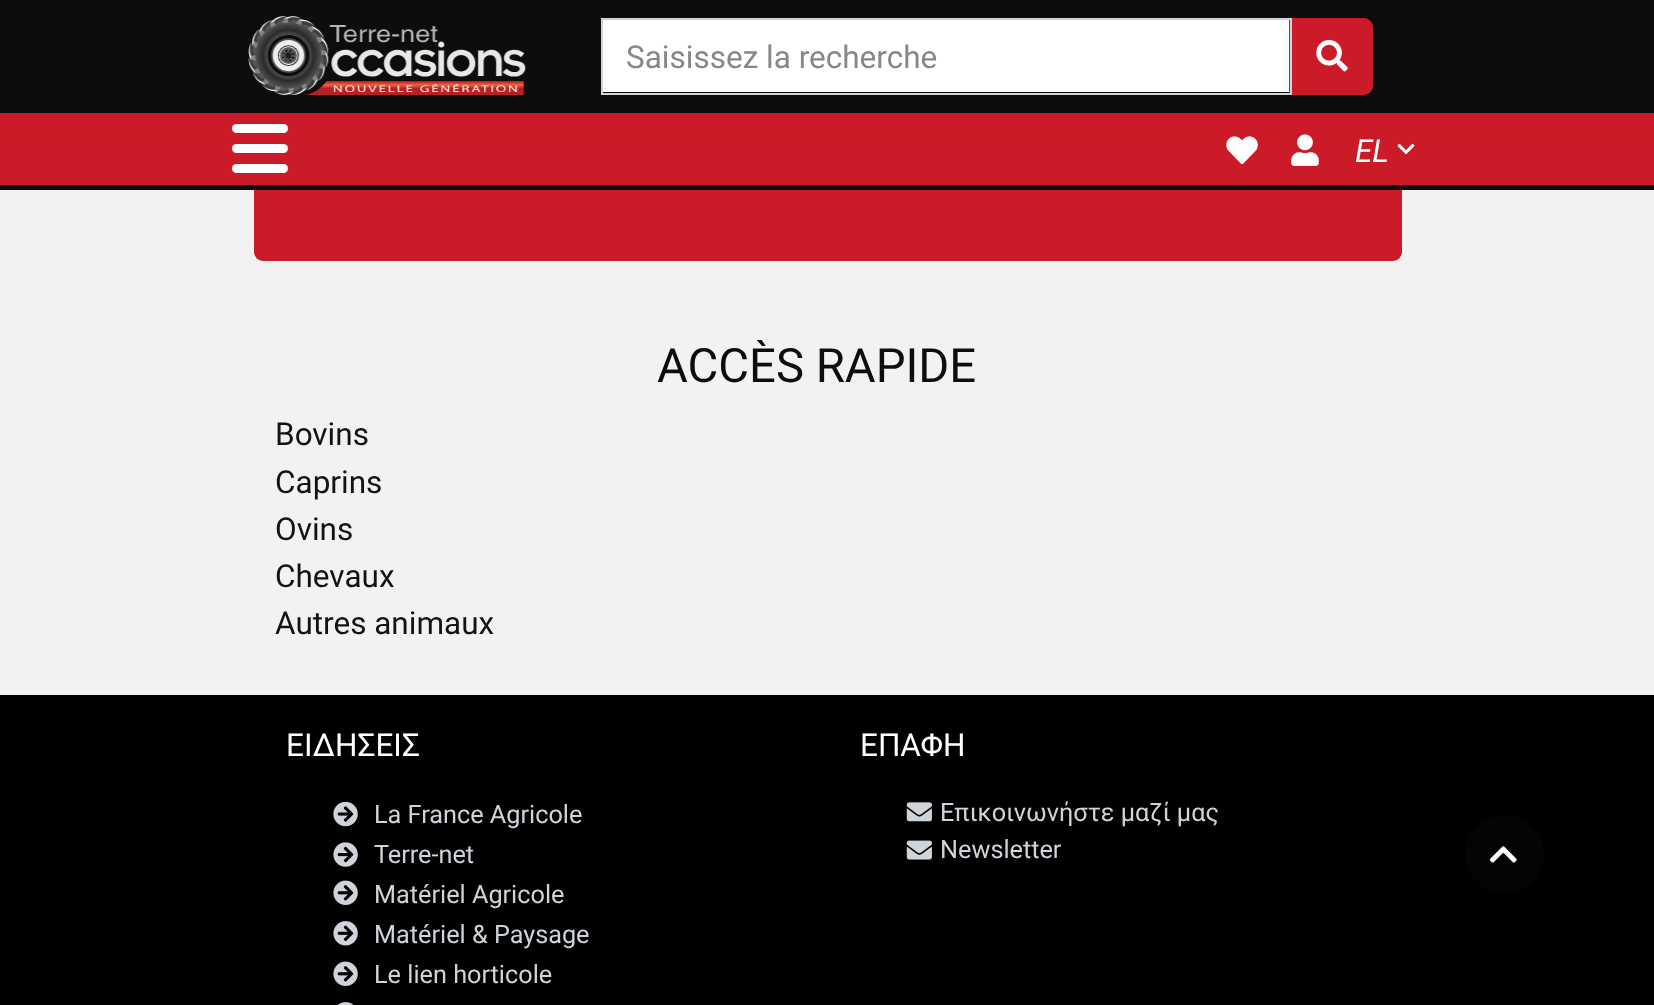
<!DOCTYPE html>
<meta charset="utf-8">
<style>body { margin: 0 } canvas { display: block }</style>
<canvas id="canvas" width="1654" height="1005"></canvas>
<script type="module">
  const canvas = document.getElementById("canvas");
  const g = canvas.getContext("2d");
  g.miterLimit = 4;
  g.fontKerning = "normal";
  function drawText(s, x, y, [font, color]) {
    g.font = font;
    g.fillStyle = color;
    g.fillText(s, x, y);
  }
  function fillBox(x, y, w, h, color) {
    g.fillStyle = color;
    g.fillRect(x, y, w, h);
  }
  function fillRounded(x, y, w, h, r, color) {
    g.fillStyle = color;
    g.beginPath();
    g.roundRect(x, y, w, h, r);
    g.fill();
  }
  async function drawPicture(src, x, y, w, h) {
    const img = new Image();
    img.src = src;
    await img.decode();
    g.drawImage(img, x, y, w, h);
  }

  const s1 = ["31.5px Roboto", "#878787"];
  const s2 = ["italic 31.5px Roboto", "#FFFFFF"];
  const s3 = ["47.25px Roboto", "#0D0D0D"];
  const s4 = ["31.5px Roboto", "#131313"];
  const s5 = ["31.5px Roboto", "#FFFFFF"];
  const s6 = ["25.25px Roboto", "#CED4DA"];

  fillBox(0, 0, 1654, 1005, "#F2F2F2");
  fillRounded(254, -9, 1148, 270, 9, "#CB1B28");
  fillBox(0, 0, 1654, 113, "#0D0D0D");
  await drawPicture("pic1.png", 248, 16, 278, 79);
  fillBox(603, 20, 686, 72, "#FFFFFF");
  g.fillStyle = "#CB1B28";
  g.beginPath();
  g.roundRect(1290, 19, 82, 75, [0, 8, 8, 0]);
  g.fill();
  g.strokeStyle = "#CB1B28";
  g.lineWidth = 2;
  g.stroke();
  g.strokeStyle = "#CED4DA";
  g.strokeRect(602, 19, 689, 75);
  drawText("Saisissez la recherche", 626, 68, s1);
  await drawPicture("pic2.png", 1316, 39, 32, 33);
  fillBox(0, 113, 1654, 72, "#CB1B28");
  fillBox(0, 185, 1654, 5, "#0D0D0D");
  fillRounded(232, 124, 56, 9, 4.5, "#FFFFFF");
  fillRounded(232, 144, 56, 9, 4.5, "#FFFFFF");
  fillRounded(232, 164, 56, 9, 4.5, "#FFFFFF");
  await drawPicture("pic3.png", 1226, 136, 32, 28);
  await drawPicture("pic4.png", 1291, 134, 28, 32);
  drawText("EL", 1355, 162, s2);
  await drawPicture("pic5.png", 1397, 143, 18, 12);
  fillBox(0, 695, 1654, 310, "#000000");
  fillRounded(1465, 815, 79, 78, 39, "#040404");
  await drawPicture("pic6.png", 1489, 846, 28, 17);
  g.save();
  g.beginPath();
  g.rect(270, 340, 1116, 56);
  g.clip();
  drawText("ACCÈS RAPIDE", 657, 382, s3);
  g.restore();
  drawText("Bovins", 275, 445, s4);
  drawText("Caprins", 275, 493, s4);
  drawText("Ovins", 275, 540, s4);
  drawText("Chevaux", 275, 587, s4);
  drawText("Autres animaux", 275, 634, s4);
  drawText("ΕΙΔΗΣΕΙΣ", 286, 756, s5);
  await drawPicture("pic7.png", 333, 801, 25, 26);
  drawText("La France Agricole", 374, 823, s6);
  await drawPicture("pic8.png", 333, 842, 25, 25);
  drawText("Terre-net", 374, 863, s6);
  await drawPicture("pic9.png", 333, 880, 25, 25);
  drawText("Matériel Agricole", 374, 903, s6);
  await drawPicture("pic10.png", 333, 921, 25, 25);
  drawText("Matériel & Paysage", 374, 943, s6);
  await drawPicture("pic9.png", 333, 961, 25, 25);
  drawText("Le lien horticole", 374, 983, s6);
  await drawPicture("pic11.png", 337, 1002, 17, 3);
  drawText("ΕΠΑΦΗ", 860, 756, s5);
  await drawPicture("pic12.png", 906, 802, 26, 20);
  drawText("Επικοινωνήστε μαζί μας", 940, 821, s6);
  await drawPicture("pic13.png", 906, 840, 26, 20);
  drawText("Newsletter", 940, 858, s6);
</script>
